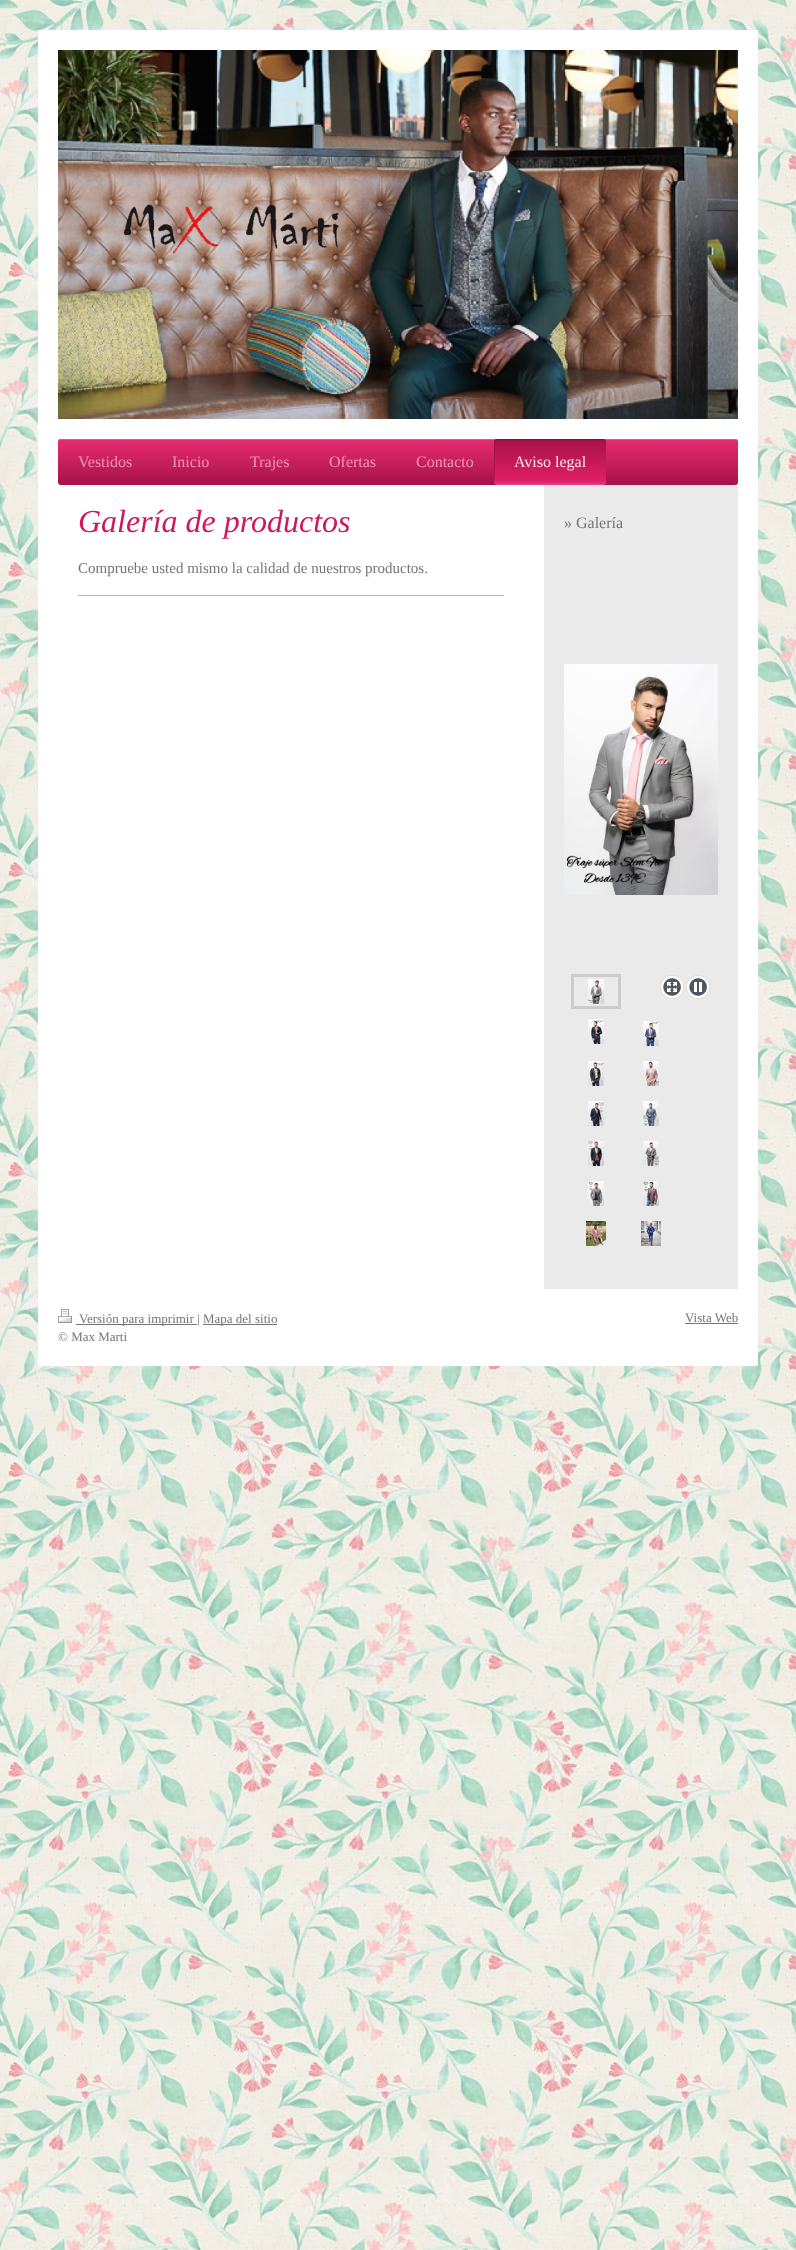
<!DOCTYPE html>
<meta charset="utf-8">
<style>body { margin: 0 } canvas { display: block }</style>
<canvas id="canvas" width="796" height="2250"></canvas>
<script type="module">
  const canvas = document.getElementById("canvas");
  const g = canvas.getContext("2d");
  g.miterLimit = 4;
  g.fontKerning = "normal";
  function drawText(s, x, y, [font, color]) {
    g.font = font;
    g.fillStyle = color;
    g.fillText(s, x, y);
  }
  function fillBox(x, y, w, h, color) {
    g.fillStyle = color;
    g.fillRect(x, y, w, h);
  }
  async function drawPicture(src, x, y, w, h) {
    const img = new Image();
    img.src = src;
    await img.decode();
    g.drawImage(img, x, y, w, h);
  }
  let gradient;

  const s1 = ["16px Liberation Serif", "#F196B7"];
  const s2 = ["16px Liberation Serif", "#FAE8EF"];
  const s3 = ["italic 32px Liberation Serif", "#CF175A"];
  const s4 = ["15px Liberation Serif", "#757575"];
  const s5 = ["16px Liberation Serif", "#757575"];
  const s6 = ["13px Liberation Serif", "#757575"];

  fillBox(0, 0, 796, 2250, "#FFFFFF");
  await drawPicture("pic1.png", 0, 0, 796, 2250);
  g.beginPath();
  g.roundRect(38, 30, 720, 1336, [0, 0, 3, 3]);
  g.fill();
  await drawPicture("pic2.png", 58, 50, 680, 369);
  await drawPicture("pic3.png", 123, 204, 216, 50);
  gradient = g.createLinearGradient(58, 439, 58, 485);
  gradient.addColorStop(0, "#E82C71");
  gradient.addColorStop(1, "#A61248");
  g.fillStyle = gradient;
  g.beginPath();
  g.roundRect(58, 439, 680, 46, 3);
  g.fill();
  g.fillStyle = "#CA1658";
  g.beginPath();
  g.moveTo(61, 440);
  g.lineTo(735, 440);
  g.bezierCurveTo(737, 440, 738, 441, 738, 443);
  g.lineTo(738, 442);
  g.bezierCurveTo(738, 440, 737, 439, 735, 439);
  g.lineTo(61, 439);
  g.bezierCurveTo(59, 439, 58, 440, 58, 442);
  g.lineTo(58, 443);
  g.bezierCurveTo(58, 441, 59, 440, 61, 440);
  g.closePath();
  g.fill();
  g.fillStyle = "rgba(255, 255, 255, 0.3)";
  g.beginPath();
  g.moveTo(61, 440);
  g.lineTo(735, 440);
  g.bezierCurveTo(737, 440, 738, 441, 738, 443);
  g.lineTo(738, 442);
  g.bezierCurveTo(738, 440, 737, 439, 735, 439);
  g.lineTo(61, 439);
  g.bezierCurveTo(59, 439, 58, 440, 58, 442);
  g.lineTo(58, 443);
  g.bezierCurveTo(58, 441, 59, 440, 61, 440);
  g.closePath();
  g.fill();
  drawText("Vestidos", 78, 467, s1);
  drawText("Inicio", 172, 467, s1);
  drawText("Trajes", 250, 467, s1);
  drawText("Ofertas", 329, 467, s1);
  drawText("Contacto", 416, 467, s1);
  gradient = g.createLinearGradient(494, 485, 494, 439);
  gradient.addColorStop(0, "#E61F67");
  gradient.addColorStop(1, "#A61248");
  g.fillStyle = gradient;
  g.beginPath();
  g.roundRect(494, 439, 112, 46, 3);
  g.fill();
  g.fillStyle = "rgba(0, 0, 0, 0.15)";
  g.beginPath();
  g.moveTo(498, 440);
  g.lineTo(605, 440);
  g.bezierCurveTo(605, 439, 604, 439, 603, 439);
  g.lineTo(497, 439);
  g.bezierCurveTo(495, 439, 494, 440, 494, 442);
  g.lineTo(494, 482);
  g.bezierCurveTo(494, 483, 494, 484, 495, 484);
  g.lineTo(495, 450);
  g.bezierCurveTo(495, 447, 493, 440, 498, 440);
  g.closePath();
  g.fill();
  g.fillStyle = "rgba(0, 0, 0, 0.04)";
  g.beginPath();
  g.moveTo(497, 442);
  g.lineTo(603, 442);
  g.bezierCurveTo(605, 442, 606, 443, 606, 445);
  g.lineTo(606, 442);
  g.bezierCurveTo(606, 440, 605, 439, 603, 439);
  g.lineTo(497, 439);
  g.bezierCurveTo(495, 439, 494, 440, 494, 442);
  g.lineTo(494, 445);
  g.bezierCurveTo(494, 443, 495, 442, 497, 442);
  g.closePath();
  g.fill();
  g.fillStyle = "rgba(255, 255, 255, 0.08)";
  g.beginPath();
  g.moveTo(494, 479);
  g.lineTo(494, 482);
  g.bezierCurveTo(494, 484, 495, 485, 497, 485);
  g.lineTo(603, 485);
  g.bezierCurveTo(605, 485, 606, 484, 606, 482);
  g.lineTo(606, 479);
  g.bezierCurveTo(606, 481, 605, 482, 603, 482);
  g.lineTo(497, 482);
  g.bezierCurveTo(495, 482, 494, 481, 494, 479);
  g.closePath();
  g.fill();
  fillBox(544, 485, 194, 804, "#EBEAEA");
  g.fillStyle = "rgba(255, 255, 255, 0.1)";
  g.beginPath();
  g.moveTo(494, 481);
  g.bezierCurveTo(494, 483, 495, 485, 497, 485);
  g.lineTo(585, 485);
  g.bezierCurveTo(587, 485, 606, 490, 606, 481);
  g.bezierCurveTo(606, 483, 605, 484, 603, 484);
  g.lineTo(497, 484);
  g.bezierCurveTo(495, 484, 494, 483, 494, 481);
  g.closePath();
  g.fill();
  drawText("Aviso legal", 514, 467, s2);
  drawText("Galería de productos", 78, 532, s3);
  drawText("Compruebe usted mismo la calidad de nuestros productos.", 78, 573, s4);
  fillBox(78, 595, 426, 1, "#BABABA");
  drawText("» Galería", 564, 528, s5);
  await drawPicture("pic4.png", 564, 664, 154, 231);
  g.strokeStyle = "#CCCCCC";
  g.lineWidth = 3;
  g.strokeRect(572.5, 975.5, 47, 32);
  await drawPicture("pic5.png", 588, 979, 16, 25);
  await drawPicture("pic6.png", 660, 975, 24, 24);
  await drawPicture("pic7.png", 686, 975, 24, 24);
  await drawPicture("pic8.png", 588, 1019, 16, 25);
  await drawPicture("pic9.png", 643, 1021, 16, 25);
  await drawPicture("pic10.png", 588, 1061, 16, 25);
  await drawPicture("pic11.png", 643, 1061, 16, 25);
  await drawPicture("pic12.png", 588, 1101, 16, 25);
  await drawPicture("pic13.png", 643, 1101, 16, 25);
  await drawPicture("pic14.png", 588, 1141, 16, 25);
  await drawPicture("pic15.png", 643, 1141, 16, 25);
  await drawPicture("pic16.png", 588, 1181, 16, 25);
  await drawPicture("pic17.png", 643, 1181, 16, 25);
  await drawPicture("pic18.png", 586, 1221, 20, 25);
  await drawPicture("pic19.png", 641, 1221, 20, 25);
  g.fillStyle = "#FFFFFF";
  g.beginPath();
  g.roundRect(38, 1289, 720, 77, [0, 0, 3, 3]);
  g.fill();
  await drawPicture("pic20.png", 58, 1309, 14, 14);
  fillBox(76, 1324, 121, 1, "#757575");
  drawText("Versión para imprimir |", 79, 1323, s6);
  fillBox(203, 1324, 74, 1, "#757575");
  drawText("Mapa del sitio", 203, 1323, s6);
  drawText("© Max Marti", 58, 1341, s6);
  drawText("Vista Web", 685, 1322, s6);
  fillBox(685, 1323, 53, 1, "#757575");
</script>
